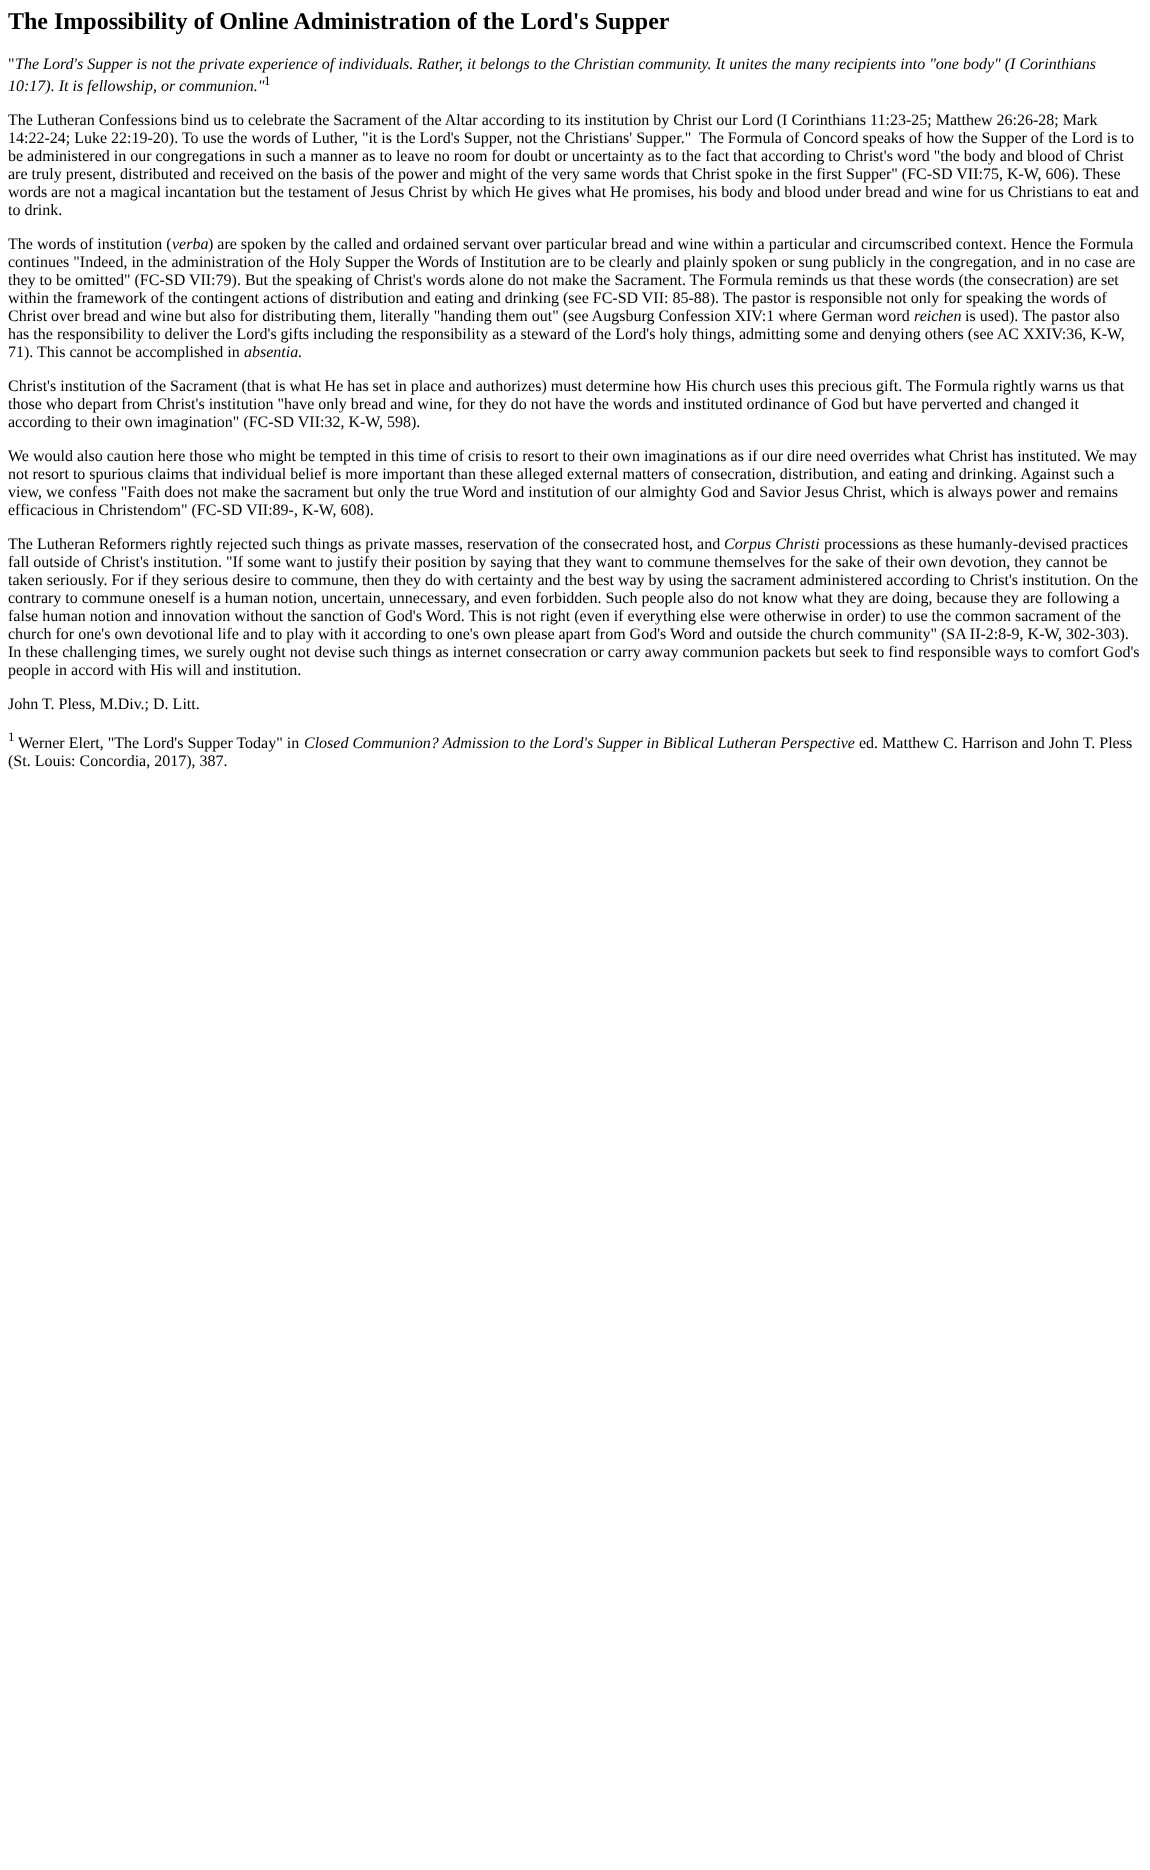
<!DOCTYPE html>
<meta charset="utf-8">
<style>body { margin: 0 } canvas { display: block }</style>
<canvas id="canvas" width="1150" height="1870"></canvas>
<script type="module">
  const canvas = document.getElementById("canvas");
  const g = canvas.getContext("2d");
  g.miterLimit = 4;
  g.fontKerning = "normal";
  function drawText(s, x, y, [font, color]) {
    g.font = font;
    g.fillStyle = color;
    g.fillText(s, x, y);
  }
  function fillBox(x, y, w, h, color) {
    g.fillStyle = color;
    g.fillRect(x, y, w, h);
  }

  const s1 = ["bold 24px Liberation Serif", "#000000"];
  const s2 = ["16px Liberation Serif", "#000000"];
  const s3 = ["italic 16px Liberation Serif", "#000000"];
  const s4 = ["13px Liberation Serif", "#000000"];

  fillBox(0, 0, 1150, 1870, "#FFFFFF");
  drawText("The Impossibility of Online Administration of the Lord's Supper", 8, 29, s1);
  drawText("\"", 8, 69, s2);
  drawText("The Lord's Supper is not the private experience of individuals. Rather, it belongs to the Christian community. It unites the many recipients into \"one body\" (I Corinthians", 15, 69, s3);
  drawText("10:17). It is fellowship, or communion.\"", 8, 91, s3);
  drawText("1", 264, 85, s4);
  drawText("The Lutheran Confessions bind us to celebrate the Sacrament of the Altar according to its institution by Christ our Lord (I Corinthians 11:23-25; Matthew 26:26-28; Mark", 8, 125, s2);
  drawText("14:22-24; Luke 22:19-20). To use the words of Luther, \"it is the Lord's Supper, not the Christians' Supper.\"  The Formula of Concord speaks of how the Supper of the Lord is to", 8, 143, s2);
  drawText("be administered in our congregations in such a manner as to leave no room for doubt or uncertainty as to the fact that according to Christ's word \"the body and blood of Christ", 8, 161, s2);
  drawText("are truly present, distributed and received on the basis of the power and might of the very same words that Christ spoke in the first Supper\" (FC-SD VII:75, K-W, 606). These", 8, 179, s2);
  drawText("words are not a magical incantation but the testament of Jesus Christ by which He gives what He promises, his body and blood under bread and wine for us Christians to eat and", 8, 197, s2);
  drawText("to drink.", 8, 215, s2);
  drawText("The words of institution (", 8, 249, s2);
  drawText("verba", 172, 249, s3);
  drawText(") are spoken by the called and ordained servant over particular bread and wine within a particular and circumscribed context. Hence the Formula", 208, 249, s2);
  drawText("continues \"Indeed, in the administration of the Holy Supper the Words of Institution are to be clearly and plainly spoken or sung publicly in the congregation, and in no case are", 8, 267, s2);
  drawText("they to be omitted\" (FC-SD VII:79). But the speaking of Christ's words alone do not make the Sacrament. The Formula reminds us that these words (the consecration) are set", 8, 285, s2);
  drawText("within the framework of the contingent actions of distribution and eating and drinking (see FC-SD VII: 85-88). The pastor is responsible not only for speaking the words of", 8, 303, s2);
  drawText("Christ over bread and wine but also for distributing them, literally \"handing them out\" (see Augsburg Confession XIV:1 where German word", 8, 321, s2);
  drawText("reichen", 914, 321, s3);
  drawText("is used). The pastor also", 965, 321, s2);
  drawText("has the responsibility to deliver the Lord's gifts including the responsibility as a steward of the Lord's holy things, admitting some and denying others (see AC XXIV:36, K-W,", 8, 339, s2);
  drawText("71). This cannot be accomplished in", 8, 357, s2);
  drawText("absentia.", 244, 357, s3);
  drawText("Christ's institution of the Sacrament (that is what He has set in place and authorizes) must determine how His church uses this precious gift. The Formula rightly warns us that", 8, 391, s2);
  drawText("those who depart from Christ's institution \"have only bread and wine, for they do not have the words and instituted ordinance of God but have perverted and changed it", 8, 409, s2);
  drawText("according to their own imagination\" (FC-SD VII:32, K-W, 598).", 8, 427, s2);
  drawText("We would also caution here those who might be tempted in this time of crisis to resort to their own imaginations as if our dire need overrides what Christ has instituted. We may", 8, 461, s2);
  drawText("not resort to spurious claims that individual belief is more important than these alleged external matters of consecration, distribution, and eating and drinking. Against such a", 8, 479, s2);
  drawText("view, we confess \"Faith does not make the sacrament but only the true Word and institution of our almighty God and Savior Jesus Christ, which is always power and remains", 8, 497, s2);
  drawText("efficacious in Christendom\" (FC-SD VII:89-, K-W, 608).", 8, 515, s2);
  drawText("The Lutheran Reformers rightly rejected such things as private masses, reservation of the consecrated host, and", 8, 549, s2);
  drawText("Corpus Christi", 724, 549, s3);
  drawText("processions as these humanly-devised practices", 824, 549, s2);
  drawText("fall outside of Christ's institution. \"If some want to justify their position by saying that they want to commune themselves for the sake of their own devotion, they cannot be", 8, 567, s2);
  drawText("taken seriously. For if they serious desire to commune, then they do with certainty and the best way by using the sacrament administered according to Christ's institution. On the", 8, 585, s2);
  drawText("contrary to commune oneself is a human notion, uncertain, unnecessary, and even forbidden. Such people also do not know what they are doing, because they are following a", 8, 603, s2);
  drawText("false human notion and innovation without the sanction of God's Word. This is not right (even if everything else were otherwise in order) to use the common sacrament of the", 8, 621, s2);
  drawText("church for one's own devotional life and to play with it according to one's own please apart from God's Word and outside the church community\" (SA II-2:8-9, K-W, 302-303).", 8, 639, s2);
  drawText("In these challenging times, we surely ought not devise such things as internet consecration or carry away communion packets but seek to find responsible ways to comfort God's", 8, 657, s2);
  drawText("people in accord with His will and institution.", 8, 675, s2);
  drawText("John T. Pless, M.Div.; D. Litt.", 8, 709, s2);
  drawText("1", 8, 741, s4);
  drawText("Werner Elert, \"The Lord's Supper Today\" in", 18, 748, s2);
  drawText("Closed Communion? Admission to the Lord's Supper in Biblical Lutheran Perspective", 304, 748, s3);
  drawText("ed. Matthew C. Harrison and John T. Pless", 859, 748, s2);
  drawText("(St. Louis: Concordia, 2017), 387.", 8, 766, s2);
</script>
